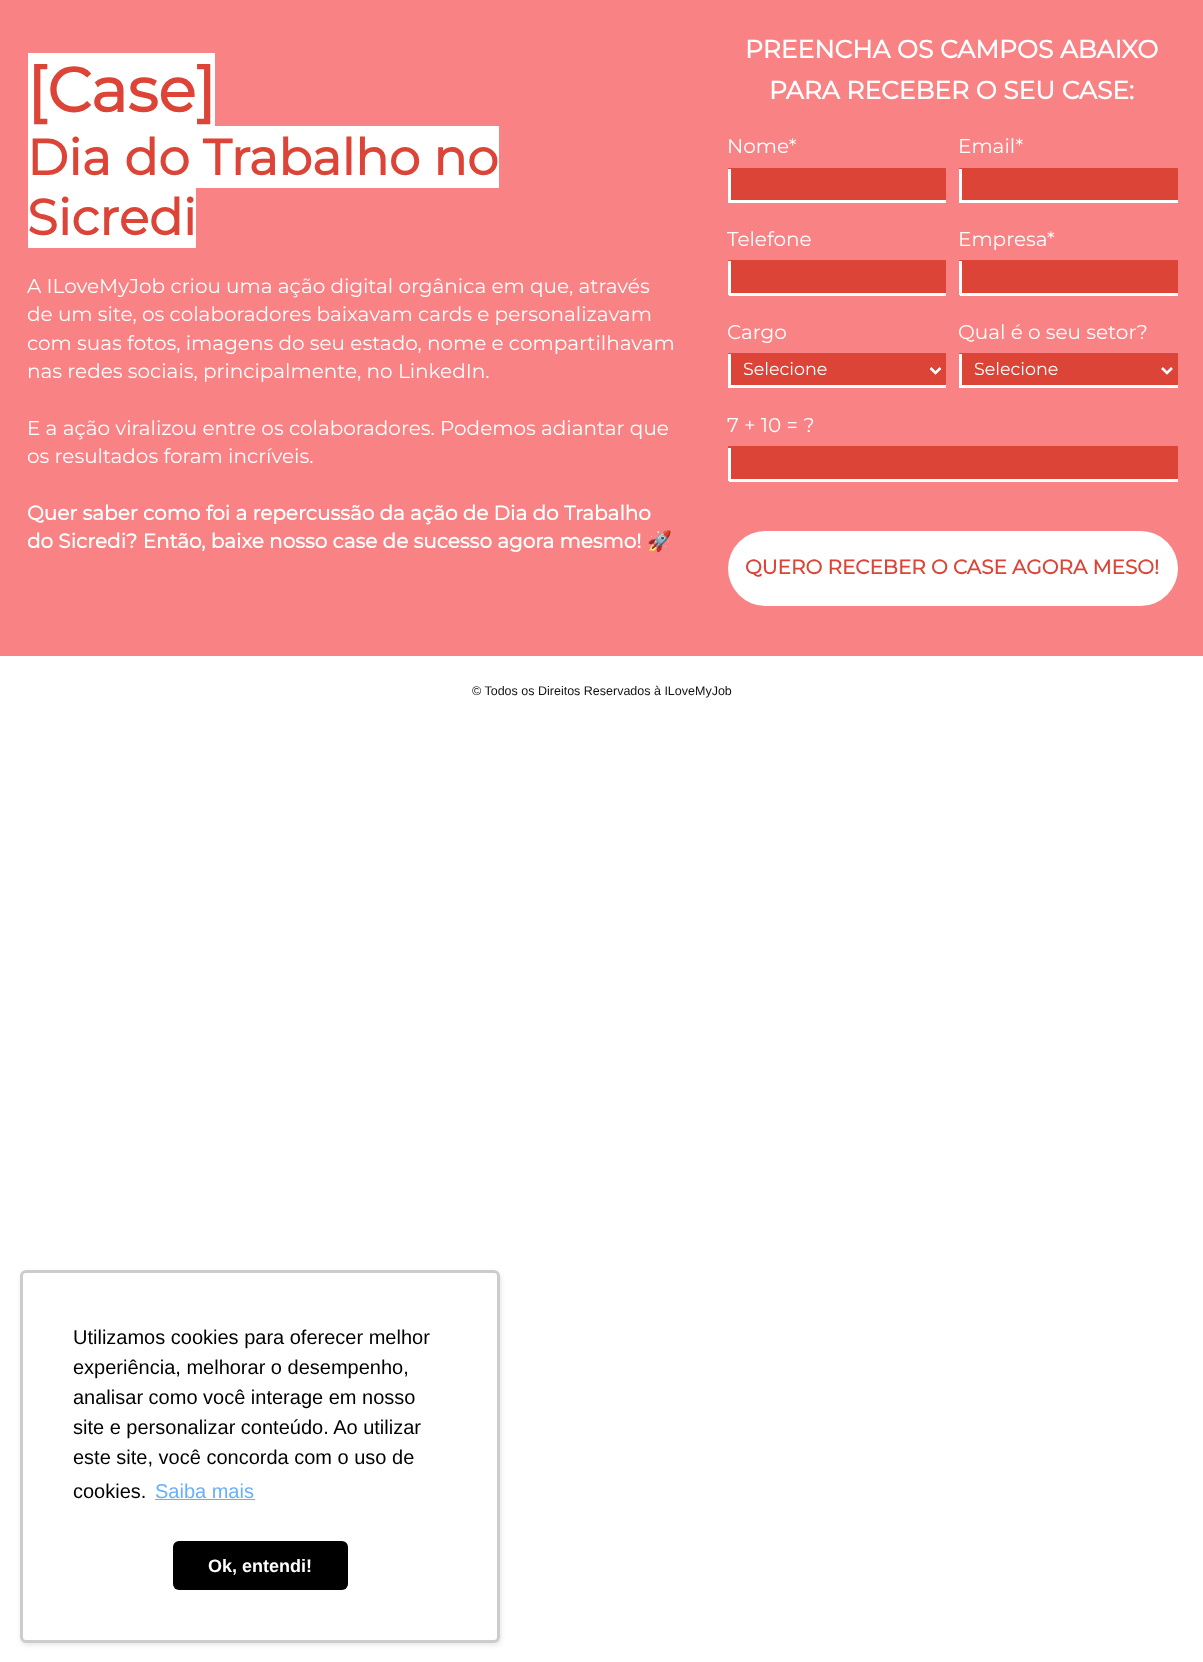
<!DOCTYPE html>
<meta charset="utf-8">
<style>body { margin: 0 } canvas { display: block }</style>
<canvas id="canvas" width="1203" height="1662"></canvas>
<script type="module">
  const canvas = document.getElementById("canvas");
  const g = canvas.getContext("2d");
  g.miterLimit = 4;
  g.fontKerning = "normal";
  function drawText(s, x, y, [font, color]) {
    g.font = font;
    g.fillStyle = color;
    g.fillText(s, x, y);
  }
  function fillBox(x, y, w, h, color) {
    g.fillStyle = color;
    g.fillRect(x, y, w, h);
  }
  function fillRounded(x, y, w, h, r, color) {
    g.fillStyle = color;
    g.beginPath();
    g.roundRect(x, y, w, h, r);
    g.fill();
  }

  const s1 = ["bold 62.5px Montserrat", "#DB4437"];
  const s2 = ["bold 50px Montserrat", "#DB4437"];
  const s3 = ["100 20px Montserrat", "#FFFFFF"];
  const s4 = ["bold 20px Montserrat", "#FFFFFF"];
  const s5 = ["bold 20px Noto Color Emoji", "#FFFFFF"];
  const s6 = ["bold 25px Montserrat", "#FFFFFF"];
  const s7 = ["100 17.5px Montserrat", "#FFFFFF"];
  const s8 = ["bold 20px Montserrat", "#DB4437"];
  const s9 = ["12.5px Liberation Sans", "#121212"];
  const s10 = ["20px Liberation Sans", "#000000"];
  const s11 = ["20px Liberation Sans", "#66B0FF"];
  const s12 = ["bold 18px Liberation Sans", "#FFFFFF"];

  fillBox(0, 0, 1203, 1662, "#FFFFFF");
  fillBox(0, 0, 1203, 656, "#F98284");
  fillBox(28, 53, 187, 73, "#FFFFFF");
  drawText("[Case]", 27, 112, s1);
  fillBox(28, 126, 471, 62, "#FFFFFF");
  drawText("Dia do Trabalho no", 27, 175, s2);
  fillBox(28, 188, 168, 60, "#FFFFFF");
  drawText("Sicredi", 27, 235, s2);
  drawText("A ILoveMyJob criou uma ação digital orgânica em que, através", 27, 293, s3);
  g.save();
  g.beginPath();
  g.rect(28, 273, 650, 283);
  g.clip();
  drawText("de um site, os colaboradores baixavam cards e personalizavam", 27, 321, s3);
  g.restore();
  drawText("com suas fotos, imagens do seu estado, nome e compartilhavam", 27, 350, s3);
  drawText("nas redes sociais, principalmente, no LinkedIn.", 27, 378, s3);
  drawText("E a ação viralizou entre os colaboradores. Podemos adiantar que", 27, 435, s3);
  drawText("os resultados foram incríveis.", 27, 463, s3);
  drawText("Quer saber como foi a repercussão da ação de Dia do Trabalho", 27, 520, s4);
  g.save();
  g.beginPath();
  g.rect(28, 273, 650, 283);
  g.clip();
  drawText("do Sicredi? Então, baixe nosso case de sucesso agora mesmo!", 27, 548, s4);
  g.restore();
  drawText("🚀", 647, 548, s5);
  drawText("PREENCHA OS CAMPOS ABAIXO", 745, 58, s6);
  drawText("PARA RECEBER O SEU CASE:", 769, 99, s6);
  drawText("Nome*", 727, 153, s3);
  fillRounded(728, 168, 218, 35, 1, "#DB4437");
  fillBox(729, 200, 217, 3, "#FFFFFF");
  fillBox(728, 169, 3, 34, "#FFFFFF");
  drawText("Email*", 958, 153, s3);
  fillRounded(959, 168, 219, 35, 1, "#DB4437");
  fillBox(960, 200, 218, 3, "#FFFFFF");
  fillBox(959, 169, 3, 34, "#FFFFFF");
  drawText("Telefone", 727, 246, s3);
  fillRounded(728, 260, 218, 35, 1, "#DB4437");
  fillBox(729, 293, 217, 3, "#FFFFFF");
  fillBox(728, 261, 3, 34, "#FFFFFF");
  drawText("Empresa*", 958, 246, s3);
  fillRounded(959, 260, 219, 35, 1, "#DB4437");
  fillBox(960, 293, 218, 3, "#FFFFFF");
  fillBox(959, 261, 3, 34, "#FFFFFF");
  drawText("Cargo", 727, 339, s3);
  fillRounded(728, 353, 218, 35, 1, "#DB4437");
  fillBox(729, 385, 217, 3, "#FFFFFF");
  fillBox(728, 354, 3, 34, "#FFFFFF");
  g.beginPath();
  g.moveTo(930.5, 368);
  g.lineTo(935.5, 373);
  g.lineTo(940.5, 368);
  g.strokeStyle = "#FFFFFF";
  g.lineWidth = 2.5;
  g.stroke();
  drawText("Selecione", 743, 375, s7);
  drawText("Qual é o seu setor?", 958, 339, s3);
  fillRounded(959, 353, 219, 35, 1, "#DB4437");
  fillBox(960, 385, 218, 3, "#FFFFFF");
  fillBox(959, 354, 3, 34, "#FFFFFF");
  g.beginPath();
  g.moveTo(1162, 368);
  g.lineTo(1167, 373);
  g.lineTo(1172, 368);
  g.stroke();
  drawText("Selecione", 974, 375, s7);
  drawText("7 + 10 = ?", 727, 432, s3);
  fillRounded(728, 446, 450, 35, 1, "#DB4437");
  fillBox(729, 479, 449, 3, "#FFFFFF");
  fillBox(728, 448, 3, 33, "#FFFFFF");
  fillRounded(728, 531, 450, 75, 37.5, "#FFFFFF");
  drawText("QUERO RECEBER O CASE AGORA MESO!", 745, 574, s8);
  drawText("© Todos os Direitos Reservados à ILoveMyJob", 472, 695, s9);
  g.fillStyle = "rgba(0, 0, 0, 0.1)";
  g.filter = "blur(2.5px)";
  g.beginPath();
  g.roundRect(21, 1273, 480, 372, 6);
  g.fill();
  g.filter = "none";
  fillRounded(20, 1270, 480, 373, 6, "#FFFFFF");
  g.beginPath();
  g.roundRect(21.5, 1271.5, 477, 370, 4.5);
  g.strokeStyle = "rgba(0, 0, 0, 0.2)";
  g.lineWidth = 3;
  g.stroke();
  drawText("Utilizamos cookies para oferecer melhor", 73, 1344, s10);
  drawText("experiência, melhorar o desempenho,", 73, 1374, s10);
  drawText("analisar como você interage em nosso", 73, 1404, s10);
  drawText("site e personalizar conteúdo. Ao utilizar", 73, 1434, s10);
  drawText("este site, você concorda com o uso de", 73, 1464, s10);
  drawText("cookies.", 73, 1498, s10);
  drawText("Saiba mais", 155, 1498, s11);
  fillBox(155, 1499, 100, 1, "#66B0FF");
  fillRounded(173, 1541, 175, 49, 6, "#000000");
  drawText("Ok, entendi!", 208, 1572, s12);
</script>
